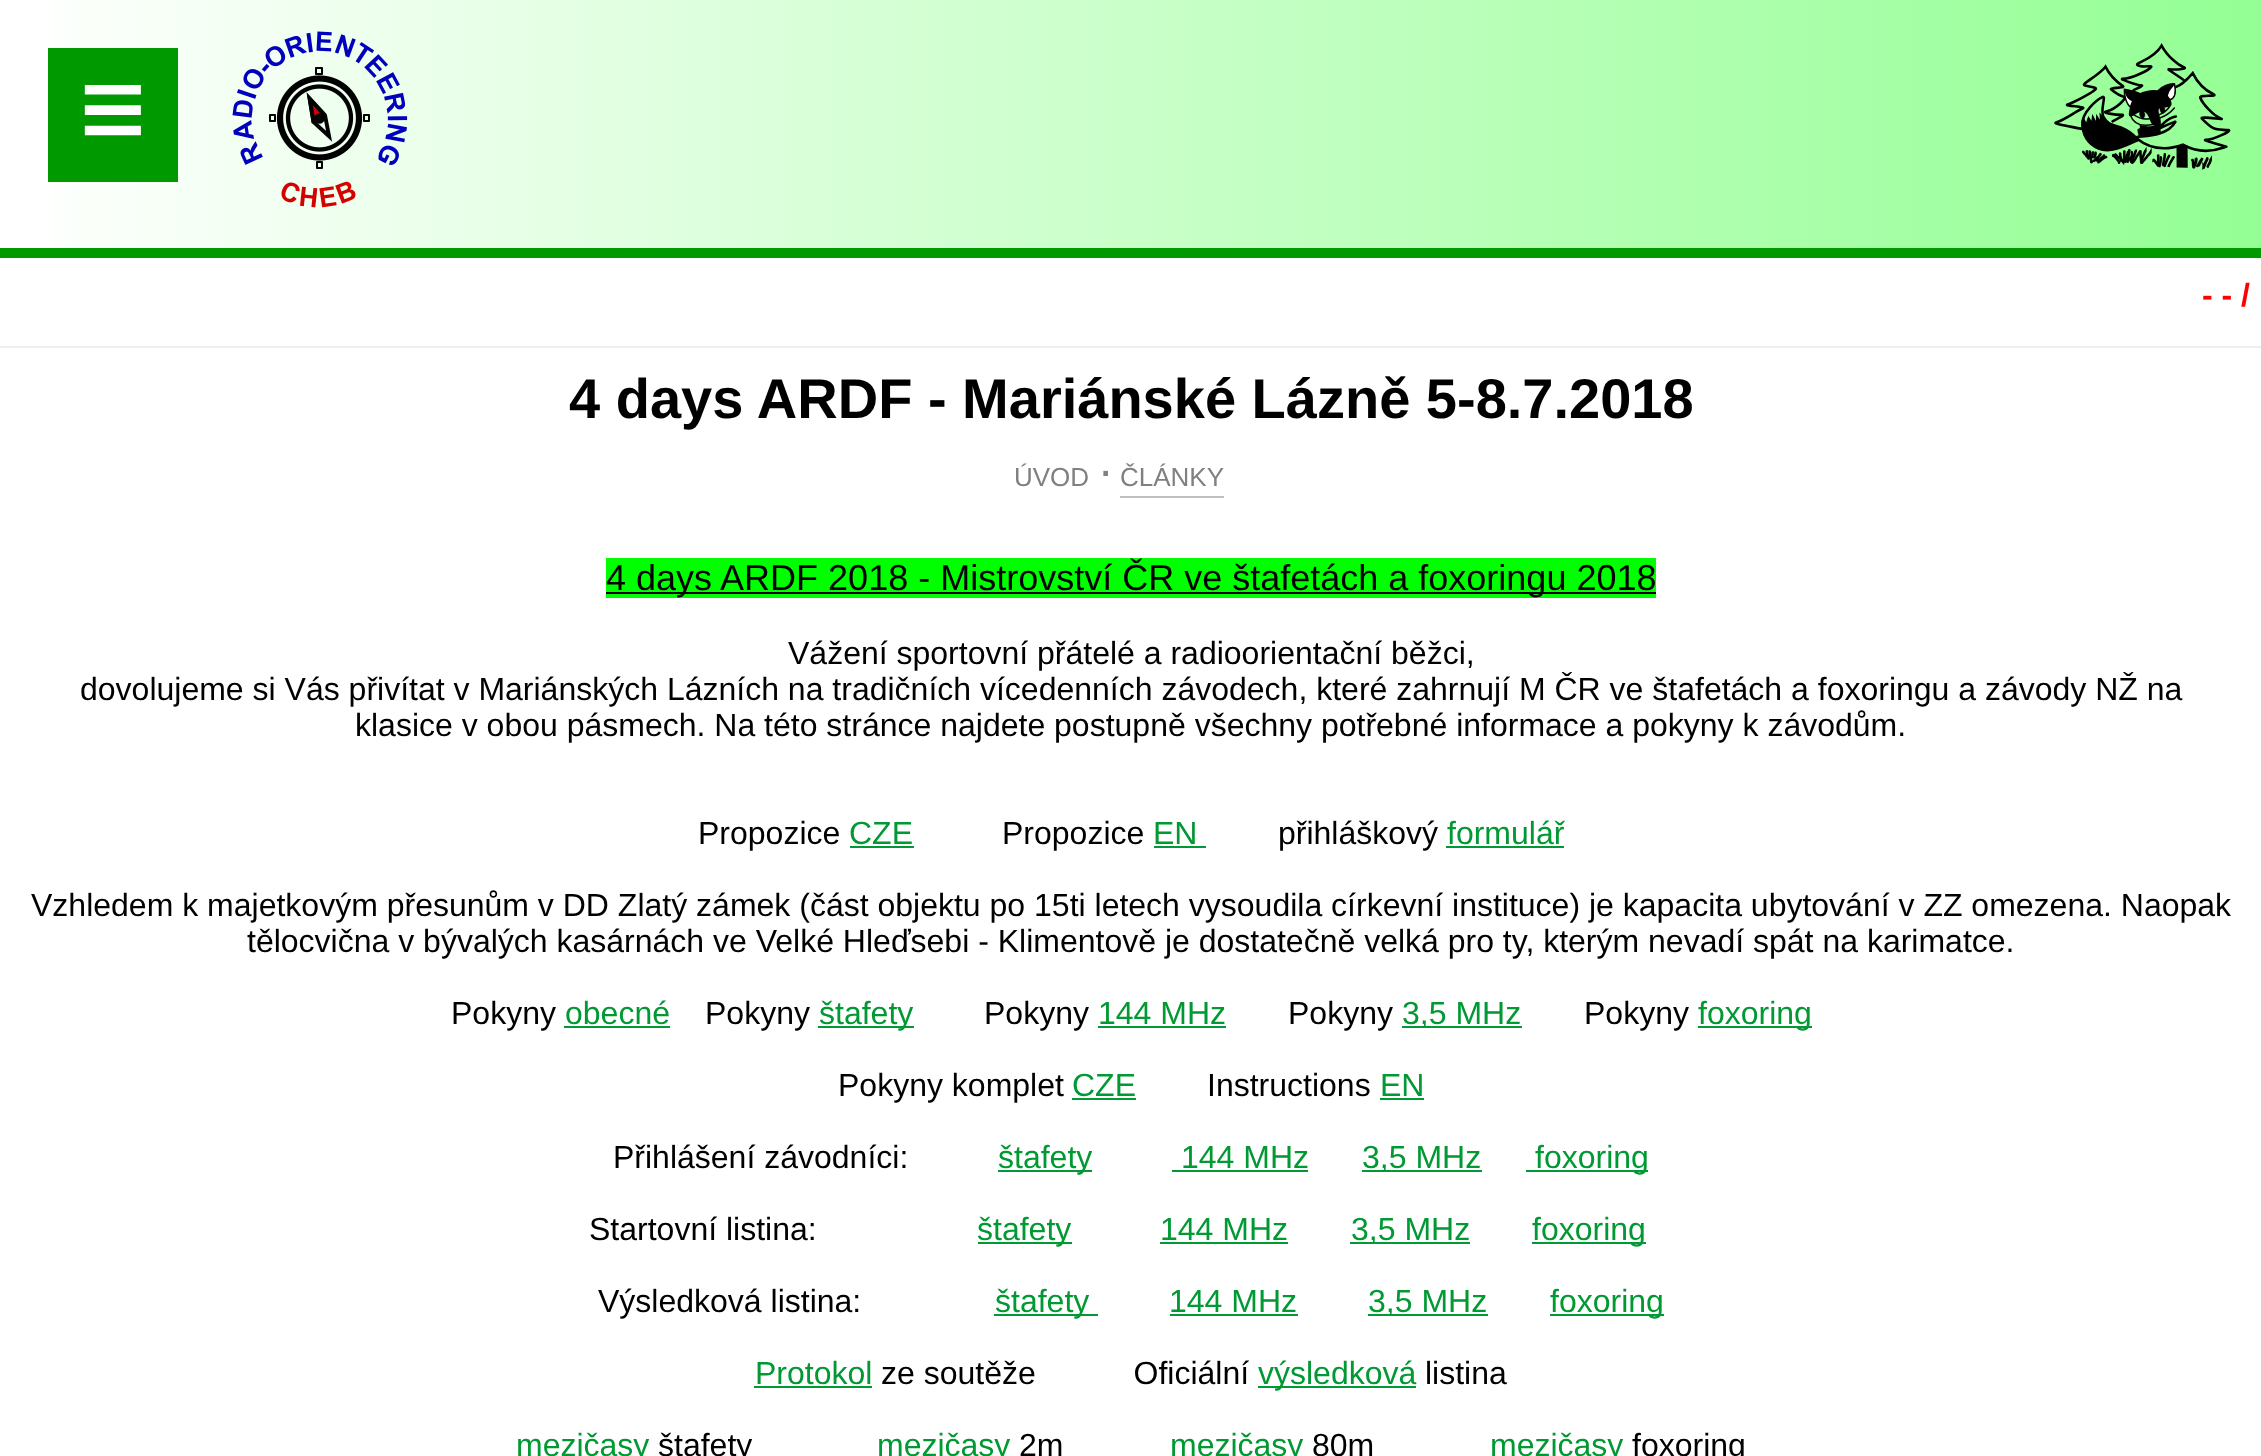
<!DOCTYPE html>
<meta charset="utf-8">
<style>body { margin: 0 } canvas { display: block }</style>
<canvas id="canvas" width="2261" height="1456"></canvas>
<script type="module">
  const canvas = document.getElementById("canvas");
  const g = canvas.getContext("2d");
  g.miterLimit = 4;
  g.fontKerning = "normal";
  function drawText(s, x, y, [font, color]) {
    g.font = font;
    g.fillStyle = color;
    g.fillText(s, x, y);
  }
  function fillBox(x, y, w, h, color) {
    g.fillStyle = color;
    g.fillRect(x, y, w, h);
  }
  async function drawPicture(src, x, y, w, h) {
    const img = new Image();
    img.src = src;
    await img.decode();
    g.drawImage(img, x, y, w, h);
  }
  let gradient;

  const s1 = ["bold 32px Liberation Sans", "#FF0000"];
  const s2 = ["bold 56px Liberation Sans", "#000000"];
  const s3 = ["26px Liberation Sans", "#808080"];
  const s4 = ["48px Liberation Sans", "#808080"];
  const s5 = ["36px Liberation Sans", "#000000"];
  const s6 = ["32px Liberation Sans", "#000000"];
  const s7 = ["32px Liberation Sans", "#009933"];

  fillBox(0, 0, 2261, 1456, "#FFFFFF");
  gradient = g.createLinearGradient(0, 124, 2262, 124);
  gradient.addColorStop(0, "#FFFFFF");
  gradient.addColorStop(1, "#94FF94");
  g.fillStyle = gradient;
  g.fillRect(53, 0, 2208, 248);
  fillBox(0, 248, 2261, 10, "#009900");
  await drawPicture("pic1.png", 232, 31, 176, 177);
  await drawPicture("pic2.png", 2054, 43, 177, 127);
  fillBox(48, 48, 130, 134, "#009900");
  await drawPicture("pic3.png", 84, 85, 57, 51);
  fillBox(0, 346, 2261, 2, "#EEEEEE");
  drawText("- - /", 2202, 306, s1);
  drawText("4 days ARDF - Mariánské Lázně 5-8.7.2018", 569, 418, s2);
  drawText("ÚVOD", 1014, 486, s3);
  drawText(".", 1099, 476, s4);
  fillBox(1120, 496, 104, 2, "#C0C0C0");
  drawText("ČLÁNKY", 1120, 486, s3);
  fillBox(606, 558, 1050, 40, "#00FF00");
  fillBox(606, 592, 1050, 2, "#000000");
  drawText("4 days ARDF 2018 - Mistrovství ČR ve štafetách a foxoringu 2018", 606, 590, s5);
  drawText("Vážení sportovní přátelé a radioorientační běžci,", 788, 664, s6);
  drawText("dovolujeme si Vás přivítat v Mariánských Lázních na tradičních vícedenních závodech, které zahrnují M ČR ve štafetách a foxoringu a závody NŽ na", 80, 700, s6);
  drawText("klasice v obou pásmech. Na této stránce najdete postupně všechny potřebné informace a pokyny k závodům.", 355, 736, s6);
  drawText("Propozice", 698, 844, s6);
  drawText("CZE", 849, 844, s7);
  fillBox(850, 846, 64, 2, "#009933");
  drawText("Propozice", 1002, 844, s6);
  drawText("EN", 1153, 844, s7);
  fillBox(1154, 846, 52, 2, "#009933");
  drawText("přihláškový", 1278, 844, s6);
  drawText("formulář", 1447, 844, s7);
  fillBox(1446, 846, 118, 2, "#009933");
  drawText("Vzhledem k majetkovým přesunům v DD Zlatý zámek (část objektu po 15ti letech vysoudila církevní instituce) je kapacita ubytování v ZZ omezena. Naopak", 31, 916, s6);
  drawText("tělocvična v bývalých kasárnách ve Velké Hleďsebi - Klimentově je dostatečně velká pro ty, kterým nevadí spát na karimatce.", 247, 952, s6);
  drawText("Pokyny", 451, 1024, s6);
  drawText("obecné", 565, 1024, s7);
  fillBox(564, 1026, 106, 2, "#009933");
  drawText("Pokyny", 705, 1024, s6);
  fillBox(818, 1026, 96, 2, "#009933");
  drawText("štafety", 819, 1024, s7);
  drawText("Pokyny", 984, 1024, s6);
  drawText("144 MHz", 1098, 1024, s7);
  fillBox(1098, 1026, 128, 2, "#009933");
  drawText("Pokyny", 1288, 1024, s6);
  fillBox(1402, 1026, 120, 2, "#009933");
  drawText("3,5 MHz", 1402, 1024, s7);
  drawText("Pokyny", 1584, 1024, s6);
  fillBox(1698, 1026, 114, 2, "#009933");
  drawText("foxoring", 1698, 1024, s7);
  drawText("Pokyny komplet", 838, 1096, s6);
  drawText("CZE", 1072, 1096, s7);
  fillBox(1072, 1098, 64, 2, "#009933");
  drawText("Instructions", 1207, 1096, s6);
  drawText("EN", 1380, 1096, s7);
  fillBox(1380, 1098, 44, 2, "#009933");
  drawText("Přihlášení závodníci:", 613, 1168, s6);
  fillBox(998, 1170, 94, 2, "#009933");
  drawText("štafety", 998, 1168, s7);
  drawText("144 MHz", 1181, 1168, s7);
  fillBox(1172, 1170, 136, 2, "#009933");
  fillBox(1362, 1170, 120, 2, "#009933");
  drawText("3,5 MHz", 1362, 1168, s7);
  fillBox(1526, 1170, 122, 2, "#009933");
  drawText("foxoring", 1535, 1168, s7);
  drawText("Startovní listina:", 589, 1240, s6);
  fillBox(978, 1242, 94, 2, "#009933");
  drawText("štafety", 977, 1240, s7);
  drawText("144 MHz", 1160, 1240, s7);
  fillBox(1160, 1242, 128, 2, "#009933");
  fillBox(1350, 1242, 120, 2, "#009933");
  drawText("3,5 MHz", 1351, 1240, s7);
  fillBox(1532, 1242, 114, 2, "#009933");
  drawText("foxoring", 1532, 1240, s7);
  drawText("Výsledková listina:", 598, 1312, s6);
  fillBox(994, 1314, 104, 2, "#009933");
  drawText("štafety", 995, 1312, s7);
  drawText("144 MHz", 1169, 1312, s7);
  fillBox(1170, 1314, 128, 2, "#009933");
  fillBox(1368, 1314, 120, 2, "#009933");
  drawText("3,5 MHz", 1368, 1312, s7);
  fillBox(1550, 1314, 114, 2, "#009933");
  drawText("foxoring", 1550, 1312, s7);
  drawText("Protokol", 755, 1384, s7);
  fillBox(754, 1386, 118, 2, "#009933");
  drawText("ze soutěže           Oficiální", 881, 1384, s6);
  fillBox(1258, 1386, 158, 2, "#009933");
  drawText("výsledková", 1258, 1384, s7);
  drawText("listina", 1425, 1384, s6);
  drawText("mezičasy", 516, 1456, s7);
  drawText("štafety", 658, 1456, s6);
  drawText("mezičasy", 877, 1456, s7);
  drawText("2m", 1019, 1456, s6);
  drawText("mezičasy", 1170, 1456, s7);
  drawText("80m", 1312, 1456, s6);
  drawText("mezičasy", 1490, 1456, s7);
  drawText("foxoring", 1632, 1456, s6);
</script>
